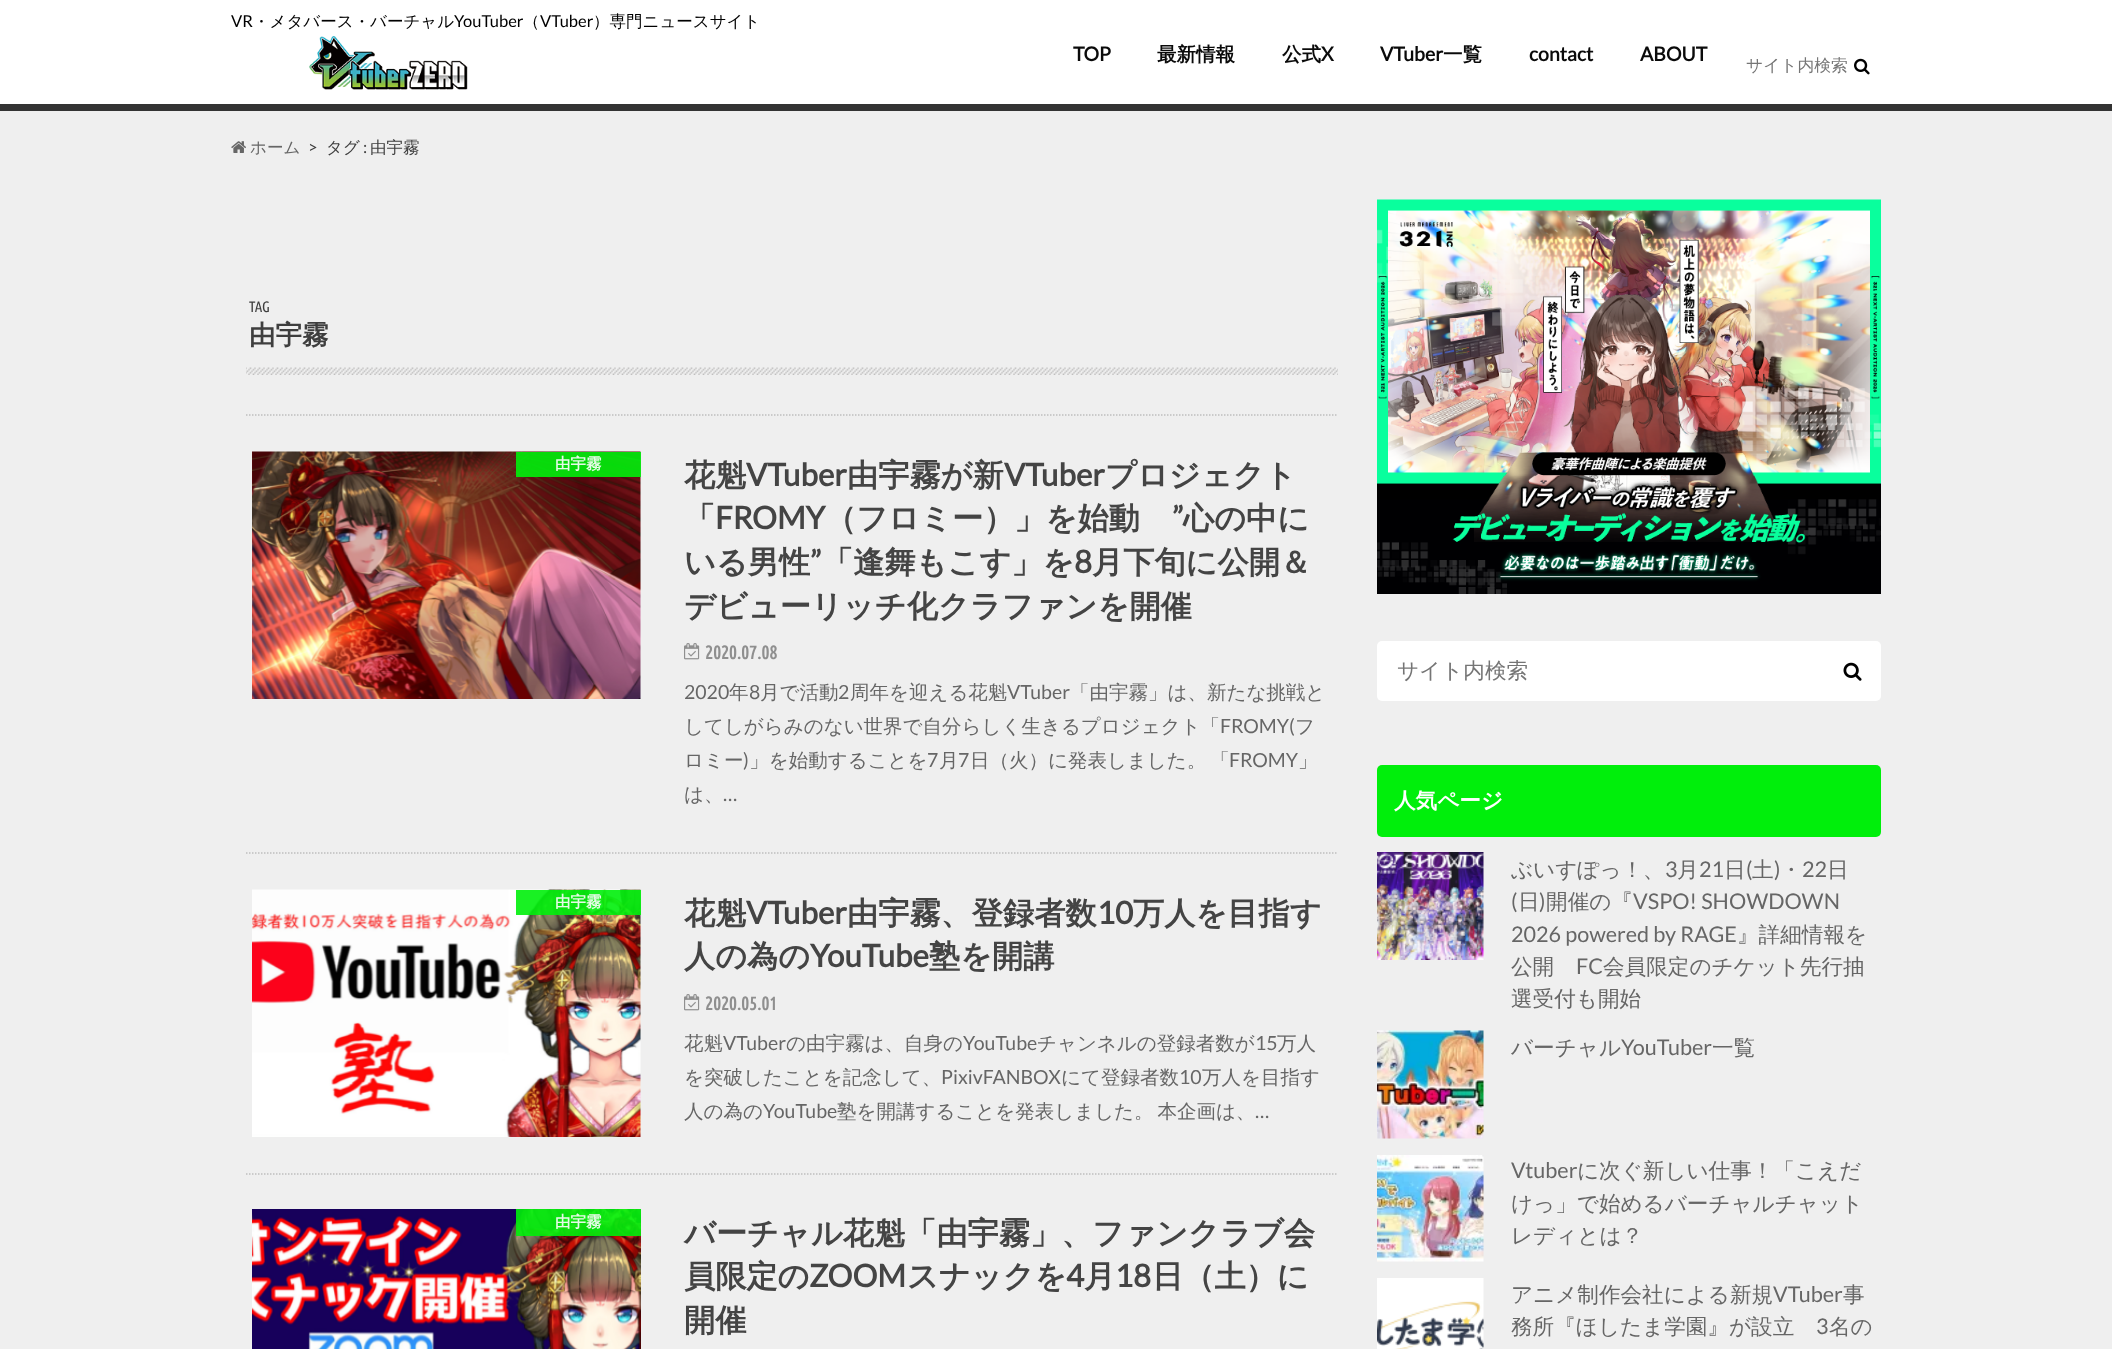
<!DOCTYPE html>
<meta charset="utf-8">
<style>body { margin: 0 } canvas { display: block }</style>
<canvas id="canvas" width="2112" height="1349"></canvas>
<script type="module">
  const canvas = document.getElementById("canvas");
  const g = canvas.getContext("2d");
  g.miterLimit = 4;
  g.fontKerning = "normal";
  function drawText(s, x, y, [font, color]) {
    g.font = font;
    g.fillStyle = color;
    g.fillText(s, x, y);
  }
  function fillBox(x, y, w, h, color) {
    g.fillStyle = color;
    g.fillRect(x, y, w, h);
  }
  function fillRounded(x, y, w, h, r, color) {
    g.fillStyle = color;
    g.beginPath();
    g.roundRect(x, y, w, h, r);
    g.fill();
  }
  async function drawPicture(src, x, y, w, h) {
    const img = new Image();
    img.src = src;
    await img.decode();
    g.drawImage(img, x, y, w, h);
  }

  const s1 = ["16.5px Lato", "#000000"];
  const s2 = ["500 16.5px WenQuanYi Zen Hei", "#000000"];
  const s3 = ["bold 19.5px Lato", "#0A0A0A"];
  const s4 = ["bold 19.5px WenQuanYi Zen Hei", "#0A0A0A"];
  const s5 = ["500 16.75px WenQuanYi Zen Hei", "#757575"];
  const s6 = ["500 16.5px WenQuanYi Zen Hei", "#666666"];
  const s7 = ["16.5px Lato", "#3E3E3E"];
  const s8 = ["500 16.5px WenQuanYi Zen Hei", "#3E3E3E"];
  const s9 = ["15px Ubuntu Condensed", "#3E3E3E"];
  const s10 = ["bold 26.5px WenQuanYi Zen Hei", "#3E3E3E"];
  const s11 = ["bold 15.5px WenQuanYi Zen Hei", "#E6FBE7"];
  const s12 = ["bold 31.2px WenQuanYi Zen Hei", "#444444"];
  const s13 = ["bold 31.2px Lato", "#444444"];
  const s14 = ["bold 18.5px Ubuntu Condensed", "#8F8F8F"];
  const s15 = ["19.5px Lato", "#666666"];
  const s16 = ["500 19.5px WenQuanYi Zen Hei", "#666666"];
  const s17 = ["500 21.6px WenQuanYi Zen Hei", "#757575"];
  const s18 = ["bold 21.6px WenQuanYi Zen Hei", "#FFFFFF"];
  const s19 = ["500 21.6px WenQuanYi Zen Hei", "#666666"];
  const s20 = ["21.6px Lato", "#666666"];

  fillBox(0, 0, 2112, 1349, "#EFEFEF");
  fillBox(0, 0, 2112, 104, "#FFFFFF");
  fillBox(0, 104, 2112, 7, "#333333");
  drawText("VR", 231, 27, s1);
  drawText("・メタバース・バーチャル", 253, 27, s2);
  drawText("YouTuber", 454, 27, s1);
  drawText("（", 523, 27, s2);
  drawText("VTuber", 540, 27, s1);
  drawText("）専門ニュースサイト", 593, 27, s2);
  await drawPicture("pic1.png", 309, 36, 159, 54);
  drawText("TOP", 1073, 61, s3);
  drawText("最新情報", 1157, 61, s4);
  drawText("公式", 1282, 61, s4);
  drawText("X", 1321, 61, s3);
  drawText("VTuber", 1380, 61, s3);
  drawText("一覧", 1443, 61, s4);
  drawText("contact", 1529, 61, s3);
  drawText("ABOUT", 1640, 61, s3);
  drawText("サイト内検索", 1746, 71, s5);
  await drawPicture("pic2.png", 1854, 58, 16, 17);
  await drawPicture("pic3.png", 231, 141, 15, 12);
  drawText("ホーム", 250, 153, s6);
  drawText(">", 308, 153, s7);
  drawText("タグ", 326, 153, s8);
  drawText(":", 363, 153, s7);
  drawText("由宇霧", 370, 153, s8);
  await drawPicture("pic4.png", 246, 367, 1092, 8);
  drawText("TAG", 249, 312, s9);
  drawText("由宇霧", 249, 344, s10);
  g.beginPath();
  g.moveTo(246, 415);
  g.lineTo(1338, 415);
  g.strokeStyle = "#BFBFBF";
  g.lineWidth = 1.5;
  g.setLineDash([1.5, 1.5]);
  g.stroke();
  g.beginPath();
  g.moveTo(246, 853);
  g.lineTo(1338, 853);
  g.stroke();
  await drawPicture("pic5.png", 252, 451, 389, 248);
  fillBox(516, 452, 125, 25, "rgba(0, 239, 11, 0.9)");
  drawText("由宇霧", 555, 469, s11);
  drawText("花魁", 684, 486, s12);
  drawText("VTuber", 746, 486, s13);
  drawText("由宇霧が新", 847, 486, s12);
  drawText("VTuber", 1004, 486, s13);
  drawText("プロジェクト", 1105, 486, s12);
  drawText("「", 684, 529, s12);
  drawText("FROMY", 715, 529, s13);
  drawText("（フロミー）」を始動", 825, 529, s12);
  drawText("”", 1172, 529, s13);
  drawText("心の中に", 1183, 529, s12);
  drawText("いる男性", 684, 573, s12);
  drawText("”", 810, 573, s13);
  drawText("「逢舞もこす」を", 822, 573, s12);
  drawText("8", 1074, 573, s13);
  drawText("月下旬に公開＆", 1092, 573, s12);
  drawText("デビューリッチ化クラファンを開催", 684, 617, s12);
  await drawPicture("pic6.png", 684, 643, 16, 17);
  drawText("2020.07.08", 705, 659, s14);
  drawText("2020", 684, 699, s15);
  drawText("年", 729, 699, s16);
  drawText("8", 749, 699, s15);
  drawText("月で活動", 760, 699, s16);
  drawText("2", 838, 699, s15);
  drawText("周年を迎える花魁", 850, 699, s16);
  drawText("VTuber", 1007, 699, s15);
  drawText("「由宇霧」は、新たな挑戦と", 1070, 699, s16);
  drawText("してしがらみのない世界で自分らしく生きるプロジェクト「", 684, 733, s16);
  drawText("FROMY(", 1220, 733, s15);
  drawText("フ", 1295, 733, s16);
  drawText("ロミー 」を始動することを", 684, 767, s16);
  drawText(")", 743, 767, s15);
  drawText("7", 927, 767, s15);
  drawText("月", 939, 767, s16);
  drawText("7", 958, 767, s15);
  g.wordSpacing = "-2px";
  drawText("日（火）に発表しました。 「", 970, 767, s16);
  g.wordSpacing = "0px";
  drawText("FROMY", 1229, 767, s15);
  drawText("」", 1298, 767, s16);
  drawText("は、", 684, 801, s16);
  drawText("…", 723, 801, s15);
  g.beginPath();
  g.moveTo(246, 1174);
  g.lineTo(1338, 1174);
  g.stroke();
  await drawPicture("pic7.png", 252, 889, 389, 248);
  fillBox(516, 890, 125, 25, "rgba(0, 239, 11, 0.9)");
  drawText("由宇霧", 555, 907, s11);
  drawText("花魁", 684, 924, s12);
  drawText("VTuber", 746, 924, s13);
  drawText("由宇霧、登録者数", 847, 924, s12);
  drawText("10", 1097, 924, s13);
  drawText("万人を目指す", 1133, 924, s12);
  drawText("人の為の", 684, 967, s12);
  drawText("YouTube", 810, 967, s13);
  drawText("塾を開講", 929, 967, s12);
  await drawPicture("pic6.png", 684, 994, 16, 17);
  drawText("2020.05.01", 705, 1010, s14);
  drawText("花魁", 684, 1050, s16);
  drawText("VTuber", 723, 1050, s15);
  drawText("の由宇霧は、自身の", 786, 1050, s16);
  drawText("YouTube", 963, 1050, s15);
  drawText("チャンネルの登録者数が", 1037, 1050, s16);
  drawText("15", 1255, 1050, s15);
  drawText("万人", 1277, 1050, s16);
  drawText("を突破したことを記念して、", 684, 1084, s16);
  drawText("PixivFANBOX", 941, 1084, s15);
  drawText("にて登録者数", 1061, 1084, s16);
  drawText("10", 1179, 1084, s15);
  drawText("万人を目指す", 1202, 1084, s16);
  drawText("人の為の", 684, 1118, s16);
  drawText("YouTube", 763, 1118, s15);
  g.wordSpacing = "-2px";
  drawText("塾を開講することを発表しました。 本企画は、", 837, 1118, s16);
  g.wordSpacing = "0px";
  drawText("…", 1255, 1118, s15);
  await drawPicture("pic8.png", 252, 1209, 389, 140);
  fillBox(516, 1209, 125, 27, "rgba(0, 239, 11, 0.9)");
  drawText("由宇霧", 555, 1227, s11);
  drawText("バーチャル花魁「由宇霧」、ファンクラブ会", 684, 1244, s12);
  drawText("員限定の", 684, 1287, s12);
  drawText("ZOOM", 809, 1287, s13);
  drawText("スナックを", 907, 1287, s12);
  drawText("4", 1066, 1287, s13);
  drawText("月", 1084, 1287, s12);
  drawText("18", 1115, 1287, s13);
  drawText("日（土）に", 1152, 1287, s12);
  drawText("開催", 684, 1331, s12);
  await drawPicture("pic9.png", 1377, 199, 504, 395);
  fillRounded(1377, 641, 504, 60, 5, "#FFFFFF");
  drawText("サイト内検索", 1397, 678, s17);
  await drawPicture("pic10.png", 1843, 662, 19, 19);
  fillRounded(1377, 765, 504, 72, 5, "#00EF0B");
  drawText("人気ページ", 1394, 808, s18);
  await drawPicture("pic11.png", 1377, 852, 107, 108);
  drawText("ぶいすぽっ！、", 1511, 877, s19);
  drawText("月", 1677, 877, s19);
  drawText("日 土 ・", 1724, 877, s19);
  drawText("3", 1665, 877, s20);
  drawText("21", 1699, 877, s20);
  drawText("(", 1746, 877, s20);
  drawText(")", 1774, 877, s20);
  drawText("22", 1802, 877, s20);
  drawText("日", 1827, 877, s19);
  drawText("(", 1511, 909, s20);
  drawText("日 開催の『", 1518, 909, s19);
  drawText(")", 1539, 909, s20);
  drawText("VSPO! SHOWDOWN", 1633, 909, s20);
  drawText("2026 powered by RAGE", 1511, 942, s20);
  drawText("』詳細情報を", 1737, 942, s19);
  drawText("公開", 1511, 974, s19);
  drawText("FC", 1576, 974, s20);
  drawText("会員限定のチケット先行抽", 1603, 974, s19);
  drawText("選受付も開始", 1511, 1006, s19);
  await drawPicture("pic12.png", 1377, 1030, 107, 109);
  drawText("バーチャル", 1511, 1055, s19);
  drawText("YouTuber", 1621, 1055, s20);
  drawText("一覧", 1712, 1055, s19);
  await drawPicture("pic13.png", 1377, 1155, 107, 107);
  drawText("Vtuber", 1511, 1178, s20);
  drawText("に次ぐ新しい仕事！「こえだ", 1577, 1178, s19);
  drawText("けっ」で始めるバーチャルチャット", 1511, 1211, s19);
  drawText("レディとは？", 1511, 1243, s19);
  await drawPicture("pic14.png", 1377, 1278, 107, 71);
  drawText("アニメ制作会社による新規", 1511, 1302, s19);
  drawText("VTuber", 1773, 1302, s20);
  drawText("事", 1843, 1302, s19);
  drawText("務所『ほしたま学園』が設立", 1511, 1334, s19);
  drawText("3", 1816, 1334, s20);
  drawText("名の", 1829, 1334, s19);
</script>
